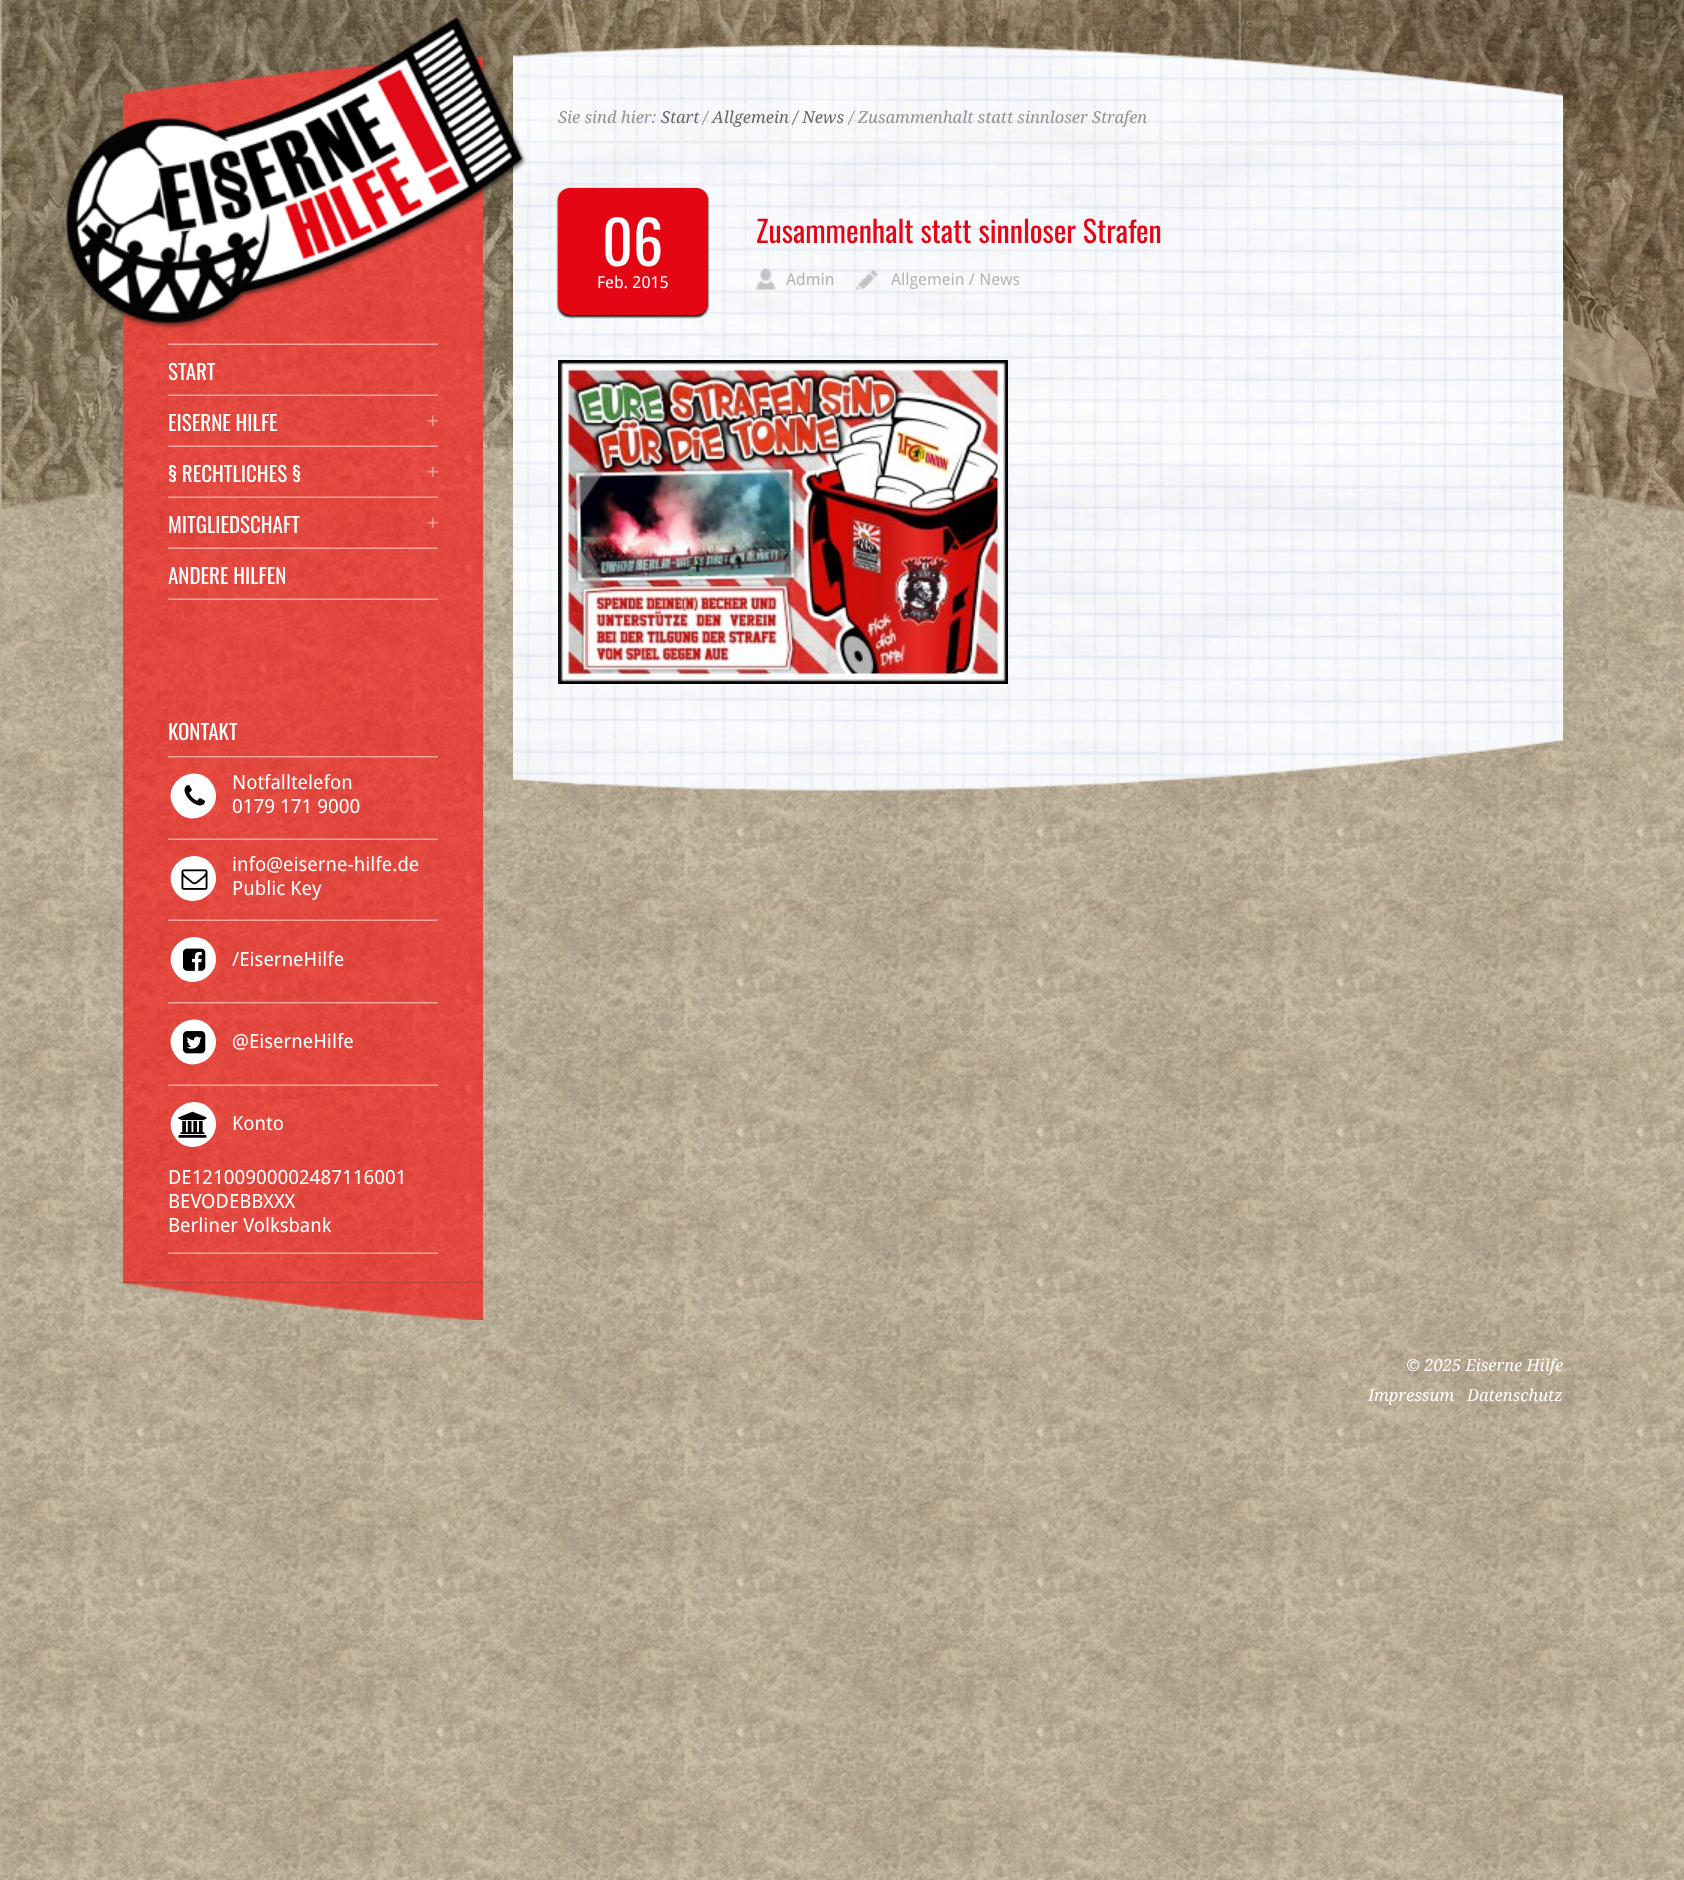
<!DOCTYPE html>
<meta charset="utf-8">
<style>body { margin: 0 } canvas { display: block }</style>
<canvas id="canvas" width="1684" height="1880"></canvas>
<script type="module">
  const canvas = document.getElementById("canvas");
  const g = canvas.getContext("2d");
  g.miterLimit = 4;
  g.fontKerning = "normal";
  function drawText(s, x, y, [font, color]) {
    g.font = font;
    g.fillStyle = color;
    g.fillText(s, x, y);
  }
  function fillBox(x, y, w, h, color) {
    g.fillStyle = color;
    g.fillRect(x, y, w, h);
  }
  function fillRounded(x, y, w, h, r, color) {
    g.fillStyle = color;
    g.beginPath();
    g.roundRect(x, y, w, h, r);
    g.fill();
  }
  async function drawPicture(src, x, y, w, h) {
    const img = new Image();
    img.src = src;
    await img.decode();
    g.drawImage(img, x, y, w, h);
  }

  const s1 = ["italic 16.5px Droid Serif", "#929292"];
  const s2 = ["italic 16.5px Droid Serif", "#666666"];
  const s3 = ["60px Oswald", "#FFFFFF"];
  const s4 = ["16.5px Droid Sans", "#FFFFFF"];
  const s5 = ["30px Oswald", "#E30615"];
  const s6 = ["16.5px Droid Sans", "#B4B4B4"];
  const s7 = ["21px Oswald", "#FFFFFF"];
  const s8 = ["19.5px Droid Sans", "#FFFFFF"];
  const s9 = ["italic 16.5px Droid Serif", "#FFFFFF"];

  fillBox(0, 0, 1684, 1880, "#FFFFFF");
  await drawPicture("pic1.png", 0, 0, 1684, 1880);
  await drawPicture("pic2.png", 1, 0, 1683, 674);
  await drawPicture("pic3.png", 1, 445, 1683, 313);
  await drawPicture("pic4.png", 513, 45, 1050, 51);
  fillBox(513, 739, 1050, 1, "#FFFFFF");
  await drawPicture("pic5.png", 513, 96, 1050, 644);
  fillBox(558, 141, 960, 2, "#EEEEEE");
  drawText("Sie sind hier:", 558, 123, s1);
  drawText("Start", 661, 123, s2);
  drawText("/", 703, 123, s1);
  drawText("Allgemein / News", 712, 123, s2);
  drawText("/ Zusammenhalt statt sinnloser Strafen", 849, 123, s1);
  g.fillStyle = "#000000";
  g.filter = "blur(1px)";
  g.beginPath();
  g.roundRect(558, 189, 150, 128, 12);
  g.fill();
  g.filter = "none";
  fillRounded(558, 188, 150, 127, 12, "#E40613");
  drawText("06", 602, 266, s3);
  drawText("Feb. 2015", 597, 288, s4);
  drawText("Zusammenhalt statt sinnloser Strafen", 756, 243, s5);
  await drawPicture("pic6.png", 756, 268, 20, 22);
  drawText("Admin", 786, 285, s6);
  await drawPicture("pic7.png", 855, 270, 23, 20);
  drawText("Allgemein / News", 891, 285, s6);
  await drawPicture("pic8.png", 558, 360, 450, 324);
  await drawPicture("pic9.png", 513, 739, 1050, 52);
  await drawPicture("pic11.png", 123, 57, 360, 39);
  fillBox(123, 1282, 360, 1, "#343434");
  await drawPicture("pic12.png", 123, 96, 360, 1187);
  await drawPicture("pic10.png", 65, 16, 462, 313);
  await drawPicture("pic13.png", 168, 343, 270, 2);
  await drawPicture("pic14.png", 168, 394, 270, 2);
  drawText("START", 168, 380, s7);
  await drawPicture("pic15.png", 168, 445, 270, 2);
  await drawPicture("pic16.png", 427, 415, 11, 12);
  drawText("EISERNE HILFE", 168, 431, s7);
  await drawPicture("pic17.png", 168, 496, 270, 2);
  await drawPicture("pic18.png", 427, 466, 11, 12);
  drawText("§ RECHTLICHES §", 168, 482, s7);
  await drawPicture("pic19.png", 168, 547, 270, 2);
  await drawPicture("pic20.png", 427, 517, 11, 12);
  drawText("MITGLIEDSCHAFT", 168, 533, s7);
  await drawPicture("pic21.png", 168, 598, 270, 2);
  drawText("ANDERE HILFEN", 168, 584, s7);
  drawText("KONTAKT", 168, 740, s7);
  await drawPicture("pic22.png", 168, 756, 270, 2);
  g.fillStyle = "#FEFFFF";
  g.beginPath();
  g.moveTo(213, 785);
  g.bezierCurveTo(227, 810, 189, 833, 174, 807);
  g.bezierCurveTo(159, 782, 198, 759, 213, 785);
  g.closePath();
  g.fill();
  await drawPicture("pic23.png", 184, 785, 21, 21);
  drawText("Notfalltelefon", 232, 789, s8);
  drawText("0179 171 9000", 232, 813, s8);
  await drawPicture("pic24.png", 168, 838, 270, 2);
  g.fillStyle = "#FEFFFF";
  g.beginPath();
  g.moveTo(213, 867);
  g.bezierCurveTo(227, 893, 189, 915, 174, 890);
  g.bezierCurveTo(159, 864, 198, 842, 213, 867);
  g.closePath();
  g.fill();
  await drawPicture("pic25.png", 181, 869, 27, 21);
  drawText("info@eiserne-hilfe.de", 232, 871, s8);
  drawText("Public Key", 232, 895, s8);
  await drawPicture("pic26.png", 168, 919, 270, 2);
  g.fillStyle = "#FEFFFF";
  g.beginPath();
  g.moveTo(213, 948);
  g.bezierCurveTo(227, 974, 189, 996, 174, 971);
  g.bezierCurveTo(159, 945, 198, 923, 213, 948);
  g.closePath();
  g.fill();
  await drawPicture("pic27.png", 183, 948, 23, 23);
  drawText("/EiserneHilfe", 232, 966, s8);
  await drawPicture("pic28.png", 168, 1002, 270, 2);
  g.fillStyle = "#FEFFFF";
  g.beginPath();
  g.moveTo(213, 1031);
  g.bezierCurveTo(227, 1056, 189, 1079, 174, 1053);
  g.bezierCurveTo(159, 1028, 198, 1005, 213, 1031);
  g.closePath();
  g.fill();
  await drawPicture("pic29.png", 183, 1031, 23, 23);
  drawText("@EiserneHilfe", 232, 1048, s8);
  await drawPicture("pic30.png", 168, 1084, 270, 2);
  g.fillStyle = "#FEFFFF";
  g.beginPath();
  g.moveTo(213, 1113);
  g.bezierCurveTo(227, 1139, 189, 1161, 174, 1136);
  g.bezierCurveTo(159, 1110, 198, 1088, 213, 1113);
  g.closePath();
  g.fill();
  await drawPicture("pic31.png", 178, 1111, 29, 27);
  drawText("Konto", 232, 1130, s8);
  drawText("DE12100900002487116001", 168, 1184, s8);
  drawText("BEVODEBBXXX", 168, 1208, s8);
  drawText("Berliner Volksbank", 168, 1232, s8);
  await drawPicture("pic32.png", 168, 1252, 270, 2);
  await drawPicture("pic33.png", 123, 1282, 360, 38);
  drawText("© 2025 Eiserne Hilfe", 1406, 1371, s9);
  drawText("Impressum", 1368, 1401, s9);
  drawText("Datenschutz", 1467, 1401, s9);
</script>
